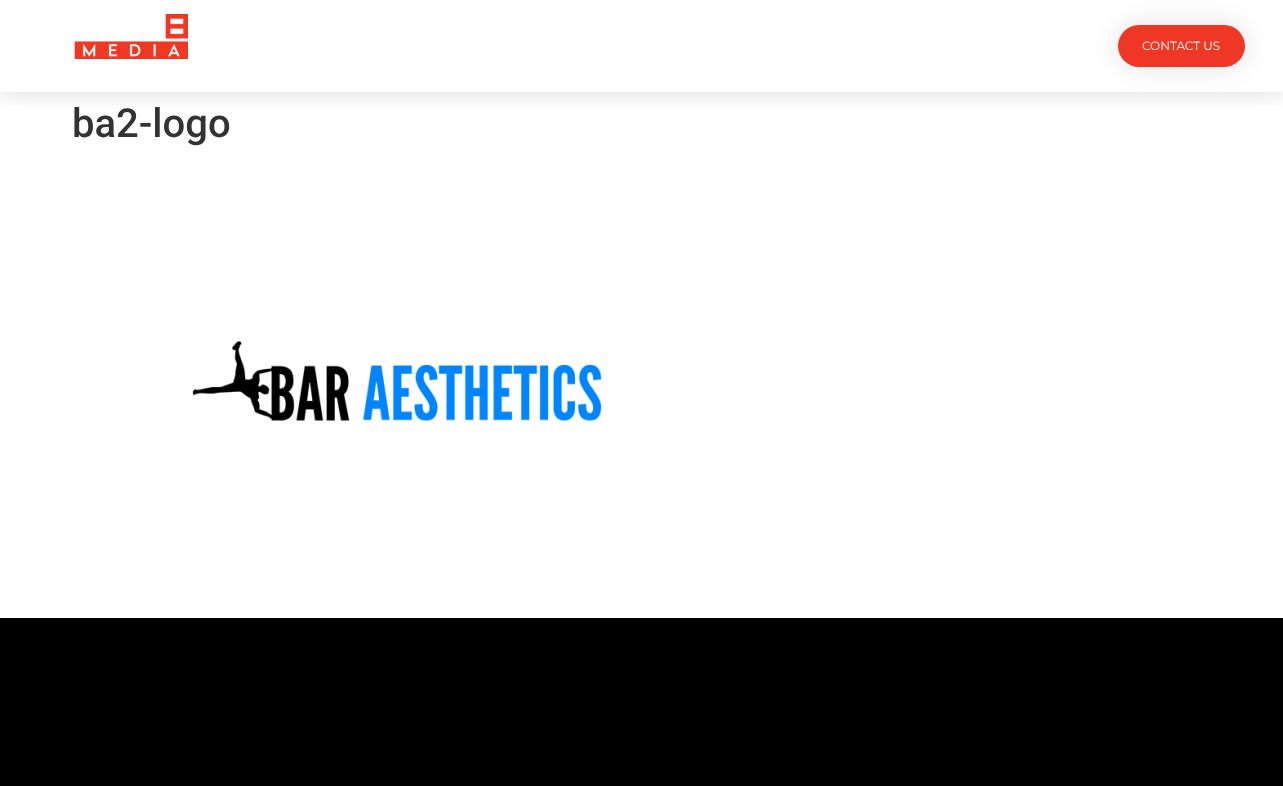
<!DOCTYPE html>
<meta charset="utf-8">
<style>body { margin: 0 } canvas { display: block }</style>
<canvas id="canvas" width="1283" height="786"></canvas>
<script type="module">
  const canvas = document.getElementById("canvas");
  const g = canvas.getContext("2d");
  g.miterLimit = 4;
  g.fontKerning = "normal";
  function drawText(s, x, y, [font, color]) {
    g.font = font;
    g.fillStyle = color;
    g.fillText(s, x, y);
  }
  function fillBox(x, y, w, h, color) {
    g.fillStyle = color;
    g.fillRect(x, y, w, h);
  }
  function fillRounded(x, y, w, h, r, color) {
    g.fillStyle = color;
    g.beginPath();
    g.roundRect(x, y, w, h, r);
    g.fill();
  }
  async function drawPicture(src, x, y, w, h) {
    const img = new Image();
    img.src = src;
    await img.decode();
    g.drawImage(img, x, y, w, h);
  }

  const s1 = ["12px Montserrat", "#FFFFFF"];
  const s2 = ["500 40px Roboto", "#333333"];

  fillBox(0, 0, 1283, 786, "#FFFFFF");
  g.save();
  g.beginPath();
  g.rect(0, 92, 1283, 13);
  g.clip();
  g.fillStyle = "rgba(0, 0, 0, 0.15)";
  g.filter = "blur(12px)";
  g.beginPath();
  g.rect(0, 0, 1283, 92);
  g.fill();
  g.filter = "none";
  g.restore();
  await drawPicture("pic1.png", 74, 14, 114, 45);
  g.fillStyle = "rgba(0, 0, 0, 0.12)";
  g.filter = "blur(13.5px)";
  g.beginPath();
  g.roundRect(1118, 25, 127, 42, 21);
  g.fill();
  g.filter = "none";
  fillRounded(1118, 25, 127, 42, 21, "#EE3724");
  drawText("CONTACT US", 1142, 50, s1);
  drawText("ba2-logo", 72, 137, s2);
  await drawPicture("pic2.png", 192, 341, 410, 80);
  fillBox(0, 618, 1283, 168, "#000000");
</script>
